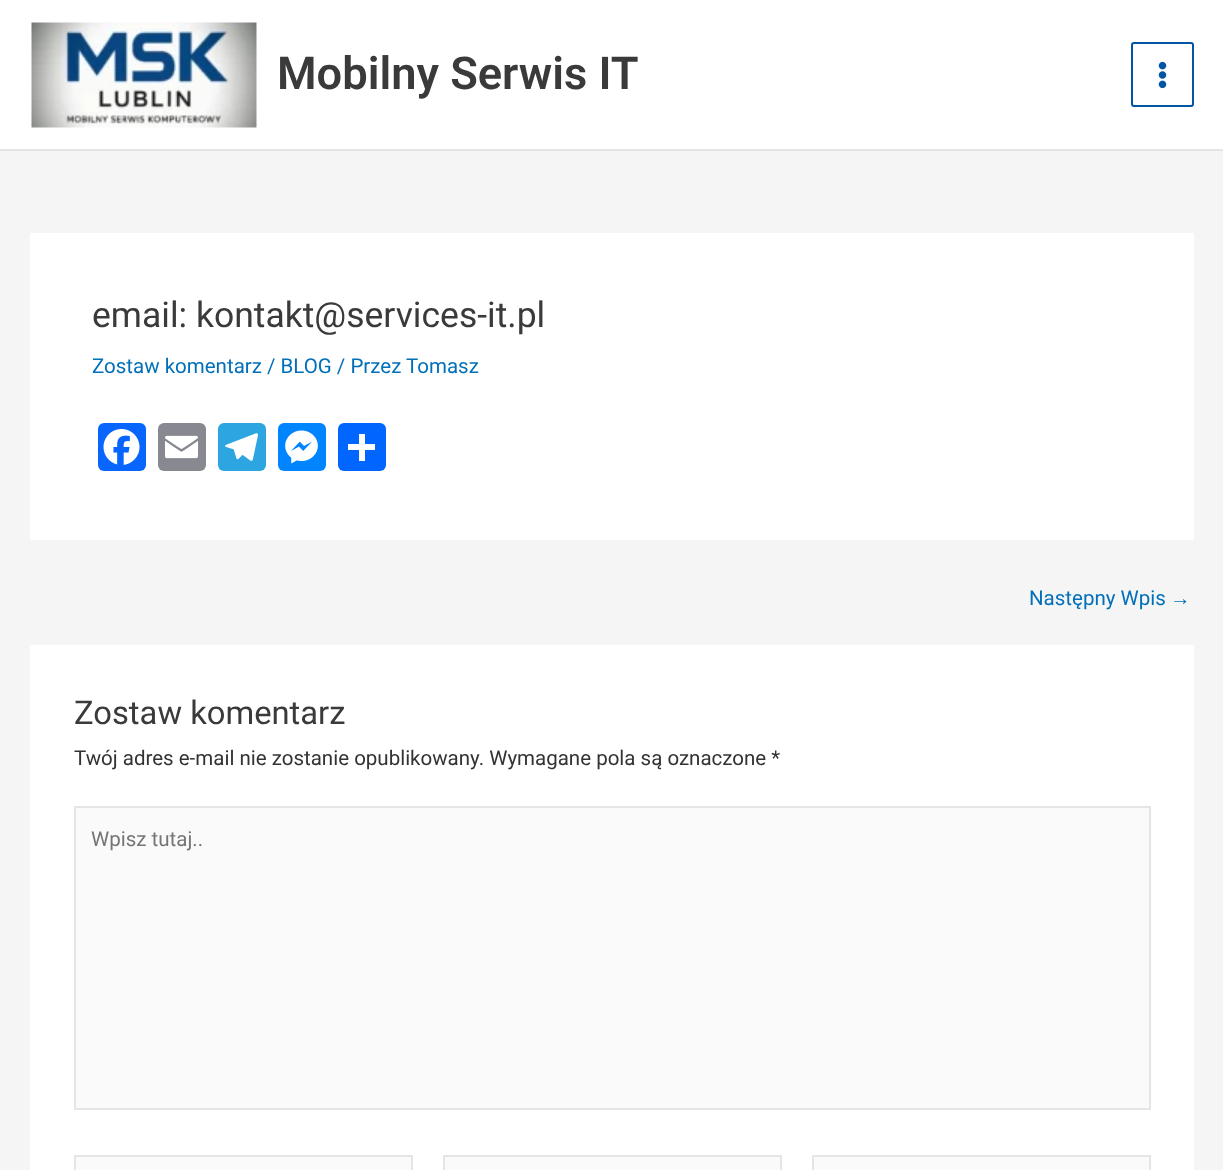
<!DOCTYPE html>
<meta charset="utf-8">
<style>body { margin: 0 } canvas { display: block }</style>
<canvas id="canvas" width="1223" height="1170"></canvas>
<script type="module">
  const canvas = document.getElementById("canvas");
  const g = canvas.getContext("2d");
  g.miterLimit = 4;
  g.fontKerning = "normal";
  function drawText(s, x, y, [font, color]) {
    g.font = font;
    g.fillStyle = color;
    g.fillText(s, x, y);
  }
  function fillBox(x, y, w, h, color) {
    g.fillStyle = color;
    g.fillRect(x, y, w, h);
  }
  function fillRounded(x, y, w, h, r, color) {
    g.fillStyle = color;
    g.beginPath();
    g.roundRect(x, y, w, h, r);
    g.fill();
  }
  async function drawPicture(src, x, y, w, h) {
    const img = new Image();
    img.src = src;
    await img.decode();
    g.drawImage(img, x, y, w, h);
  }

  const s1 = ["600 45.25px Roboto", "#3A3A3A"];
  const s2 = ["35.5px Roboto", "#3A3A3A"];
  const s3 = ["20.5px Roboto", "#0170B9"];
  const s4 = ["20.5px Liberation Sans", "#0170B9"];
  const s5 = ["32.75px Roboto", "#3A3A3A"];
  const s6 = ["20.5px Roboto", "#333333"];
  const s7 = ["20.5px Roboto", "#757575"];

  fillBox(0, 0, 1223, 1170, "#F5F5F5");
  fillBox(0, 0, 1223, 149, "#FFFFFF");
  fillBox(0, 149, 1223, 2, "#E5E5E5");
  await drawPicture("pic1.png", 31, 22, 226, 106);
  drawText("Mobilny Serwis IT", 277, 89, s1);
  g.beginPath();
  g.roundRect(1132, 43, 61, 63, 2);
  g.strokeStyle = "#0056A0";
  g.lineWidth = 2;
  g.stroke();
  await drawPicture("pic2.png", 1158, 61, 9, 28);
  fillBox(30, 233, 1164, 307, "#FFFFFF");
  drawText("email: kontakt@services-it.pl", 92, 327, s2);
  drawText("Zostaw komentarz / BLOG / Przez", 92, 373, s3);
  drawText("Tomasz", 406, 373, s3);
  fillRounded(98, 423, 48, 48, 6, "#0866FF");
  await drawPicture("pic3.png", 103, 429, 37, 36);
  fillRounded(158, 423, 48, 48, 6, "#888990");
  await drawPicture("pic4.png", 165, 435, 33, 24);
  fillRounded(218, 423, 48, 48, 6, "#2CA5E0");
  await drawPicture("pic5.png", 225, 433, 33, 28);
  fillRounded(278, 423, 48, 48, 6, "#0084FF");
  await drawPicture("pic6.png", 285, 430, 33, 34);
  fillRounded(338, 423, 48, 48, 6, "#0166FF");
  fillBox(359, 434, 6, 27, "#FFFFFF");
  fillBox(348, 444, 27, 6, "#FFFFFF");
  drawText("Następny Wpis", 1029, 605, s3);
  drawText("→", 1170, 605, s4);
  fillBox(30, 645, 1164, 525, "#FFFFFF");
  drawText("Zostaw komentarz", 74, 724, s5);
  drawText("Twój adres e-mail nie zostanie opublikowany. Wymagane pola są oznaczone *", 74, 765, s6);
  g.fillStyle = "#FAFAFA";
  g.beginPath();
  g.rect(75, 807, 1075, 302);
  g.fill();
  g.strokeStyle = "#E5E5E5";
  g.stroke();
  drawText("Wpisz tutaj..", 91, 846, s7);
  g.fillStyle = "#FAFAFA";
  g.beginPath();
  g.rect(75, 1156, 337, 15);
  g.fill();
  g.stroke();
  g.beginPath();
  g.rect(444, 1156, 337, 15);
  g.fill();
  g.stroke();
  g.beginPath();
  g.rect(813, 1156, 337, 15);
  g.fill();
  g.stroke();
</script>
